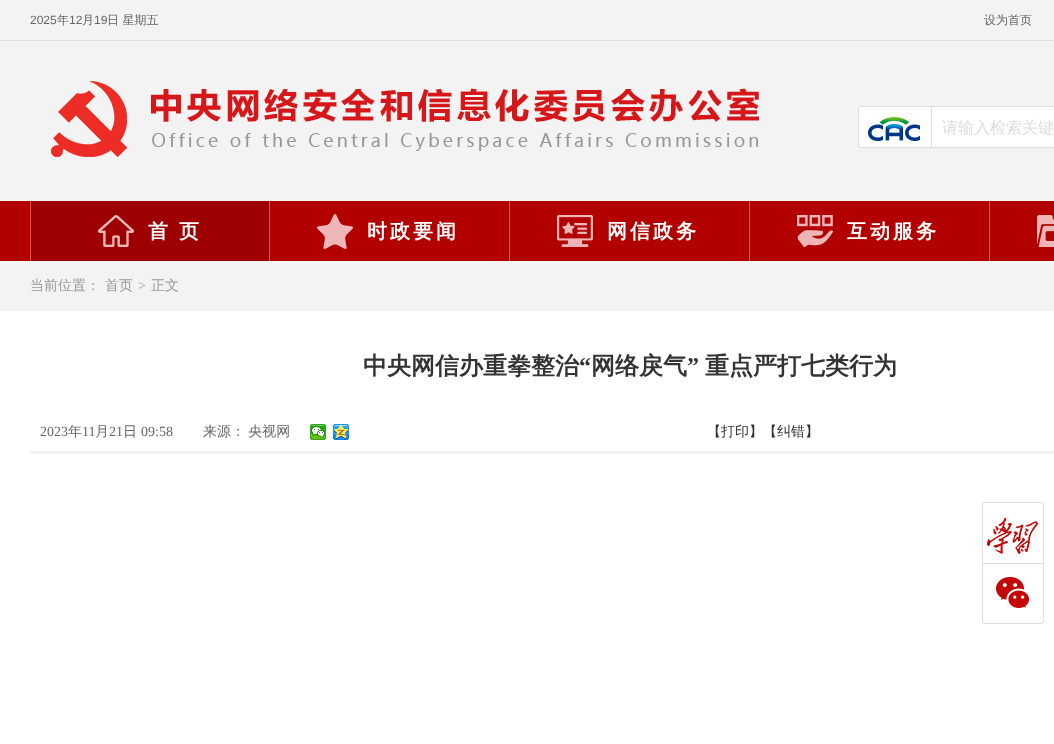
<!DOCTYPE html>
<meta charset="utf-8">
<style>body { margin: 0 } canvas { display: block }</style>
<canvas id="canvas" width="1054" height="744"></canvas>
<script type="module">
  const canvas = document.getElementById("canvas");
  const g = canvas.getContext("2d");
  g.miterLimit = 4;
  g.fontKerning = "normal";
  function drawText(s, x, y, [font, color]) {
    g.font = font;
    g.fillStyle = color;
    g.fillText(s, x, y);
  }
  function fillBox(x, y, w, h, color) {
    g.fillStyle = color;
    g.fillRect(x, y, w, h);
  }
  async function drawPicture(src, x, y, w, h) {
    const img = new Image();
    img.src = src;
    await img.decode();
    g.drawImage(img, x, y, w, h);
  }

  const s1 = ["12px Liberation Sans", "#666666"];
  const s2 = ["500 12px WenQuanYi Zen Hei", "#666666"];
  const s3 = ["500 16px WenQuanYi Zen Hei", "#DDDDDD"];
  const s4 = ["bold 20px WenQuanYi Zen Hei", "#FFFFFF"];
  const s5 = ["500 14px WenQuanYi Zen Hei", "#999999"];
  const s6 = ["14px Liberation Serif", "#999999"];
  const s7 = ["bold 24px WenQuanYi Zen Hei", "#333333"];
  const s8 = ["bold 24px Liberation Serif", "#333333"];
  const s9 = ["14px Liberation Serif", "#666666"];
  const s10 = ["500 14px WenQuanYi Zen Hei", "#666666"];
  const s11 = ["500 14px WenQuanYi Zen Hei", "#333333"];

  fillBox(0, 0, 1054, 744, "#FFFFFF");
  fillBox(0, 0, 1054, 201, "#F3F3F3");
  fillBox(0, 40, 1054, 1, "#DEDEDE");
  drawText("2025", 30, 24, s1);
  drawText("年", 57, 24, s2);
  drawText("12", 69, 24, s1);
  drawText("月", 82, 24, s2);
  drawText("19", 94, 24, s1);
  drawText("日 星期五", 107, 24, s2);
  drawText("设为首页", 984, 24, s2);
  await drawPicture("pic1.png", 51, 81, 708, 76);
  g.fillStyle = "#FFFFFF";
  g.beginPath();
  g.roundRect(858.5, 106.5, 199, 41, 2.5);
  g.fill();
  g.strokeStyle = "#DEDEDE";
  g.stroke();
  await drawPicture("pic2.png", 868, 117, 52, 24);
  fillBox(931, 107, 1, 40, "#DEDEDE");
  drawText("请输入检索关键", 942, 133, s3);
  fillBox(0, 201, 1054, 60, "#B20000");
  fillBox(269, 201, 1, 60, "#D65656");
  fillBox(30, 201, 1, 60, "#D65656");
  fillBox(31, 201, 238, 60, "#9C0000");
  await drawPicture("pic3.png", 98, 215, 36, 32);
  g.letterSpacing = "3px";
  g.wordSpacing = "-1px";
  drawText("首 页", 148, 238, s4);
  fillBox(509, 201, 1, 60, "#D65656");
  await drawPicture("pic4.png", 317, 214, 36, 35);
  g.wordSpacing = "0px";
  drawText("时政要闻", 367, 238, s4);
  fillBox(749, 201, 1, 60, "#D65656");
  await drawPicture("pic5.png", 557, 215, 36, 32);
  drawText("网信政务", 607, 238, s4);
  fillBox(989, 201, 1, 60, "#D65656");
  await drawPicture("pic6.png", 797, 215, 36, 32);
  drawText("互动服务", 847, 238, s4);
  await drawPicture("pic7.png", 1037, 215, 17, 32);
  fillBox(0, 261, 1054, 50, "#F3F3F3");
  g.letterSpacing = "0px";
  drawText("当前位置：", 30, 290, s5);
  drawText("首页", 105, 290, s5);
  drawText(">", 138, 290, s6);
  drawText("正文", 151, 290, s5);
  drawText("中央网信办重拳整治", 363, 374, s7);
  drawText("“", 579, 374, s8);
  drawText("网络戾气", 591, 374, s7);
  drawText("”", 687, 374, s8);
  drawText("重点严打七类行为", 705, 374, s7);
  fillBox(30, 451, 1024, 3, "#F3F3F3");
  drawText("2023", 40, 436, s9);
  drawText("年", 68, 436, s10);
  drawText("11", 82, 436, s9);
  drawText("月", 95, 436, s10);
  drawText("21", 109, 436, s9);
  drawText("日", 123, 436, s10);
  drawText("09:58", 141, 436, s9);
  g.wordSpacing = "-1px";
  drawText("来源： 央视网", 203, 436, s10);
  await drawPicture("pic8.png", 310, 424, 16, 16);
  await drawPicture("pic9.png", 333, 424, 16, 16);
  g.wordSpacing = "0px";
  drawText("【打印】【纠错】", 707, 436, s11);
  g.beginPath();
  g.roundRect(982.5, 502.5, 61, 121, 2.5);
  g.stroke();
  await drawPicture("pic10.png", 987, 518, 51, 36);
  await drawPicture("pic11.png", 996, 577, 33, 31);
  fillBox(983, 563, 60, 1, "#DEDEDE");
</script>
